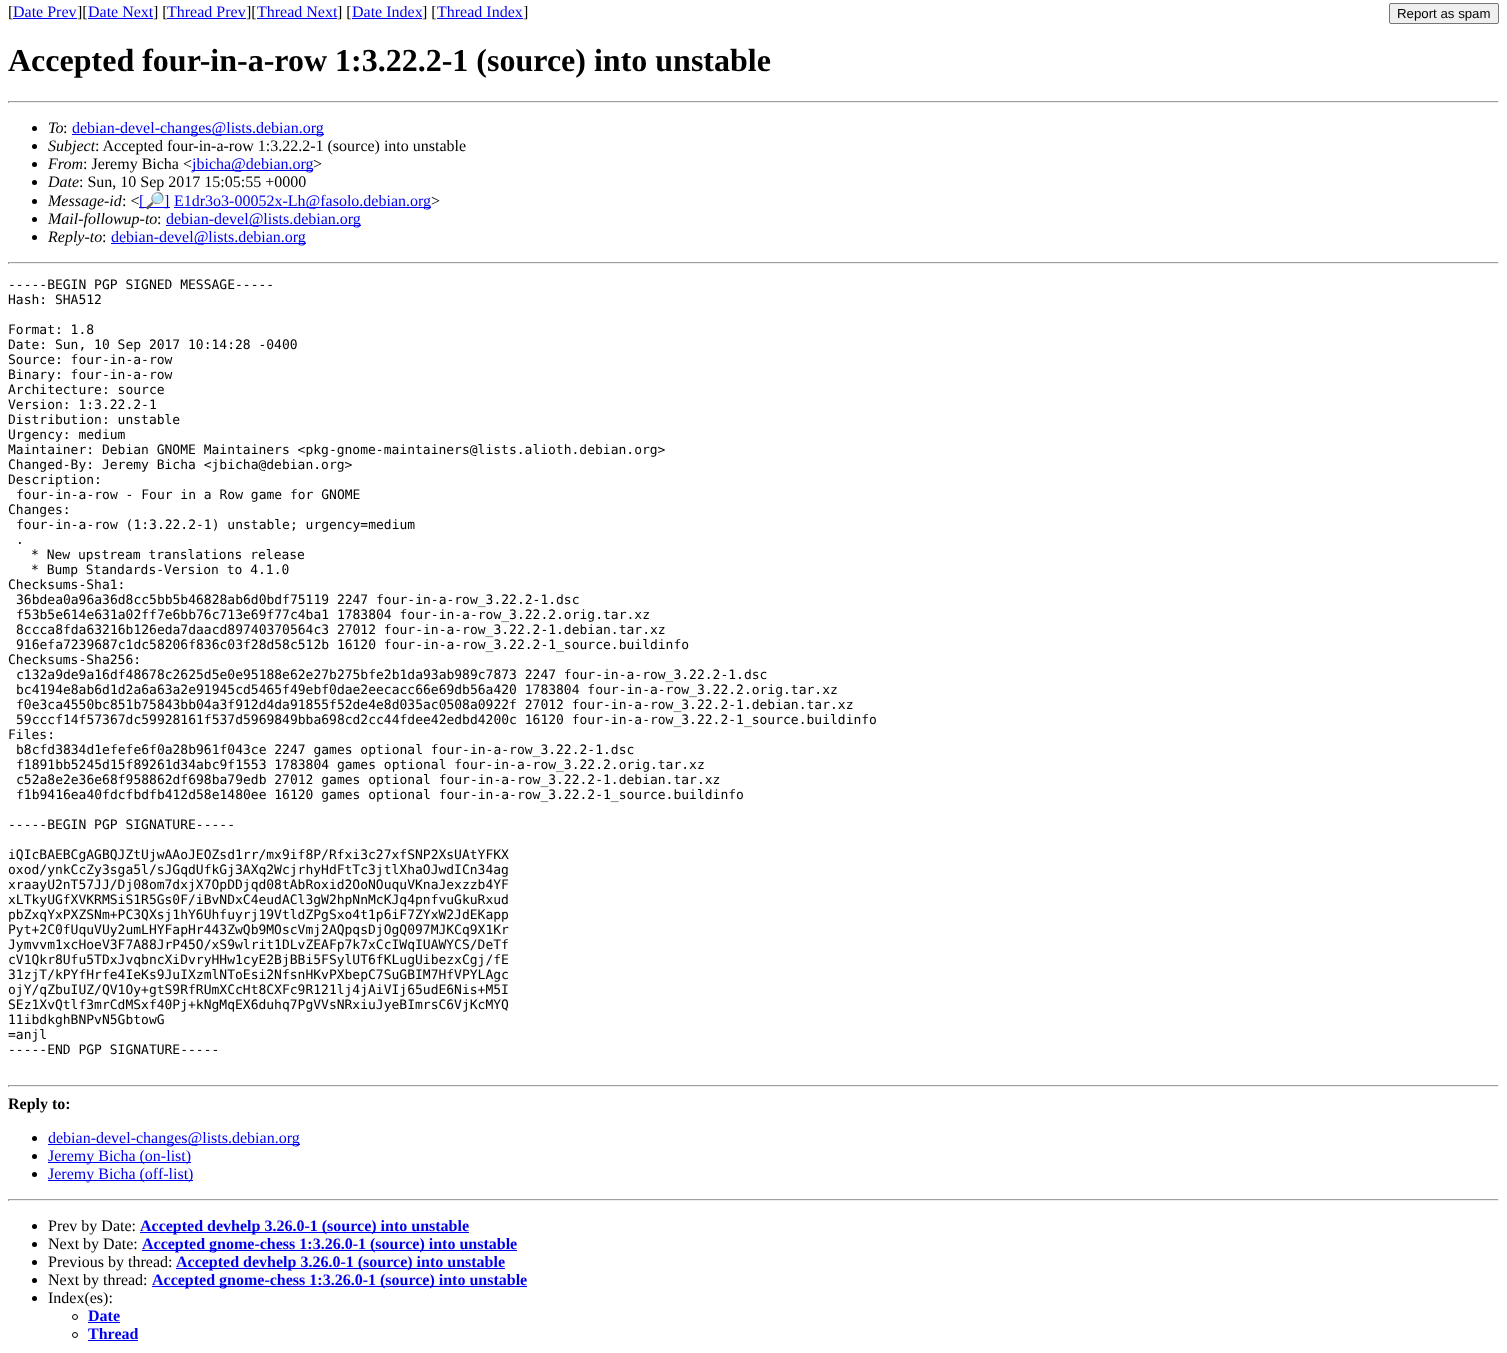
<!DOCTYPE html>
<meta charset="utf-8">
<style>body { margin: 0 } canvas { display: block }</style>
<canvas id="canvas" width="1507" height="1353"></canvas>
<script type="module">
  const canvas = document.getElementById("canvas");
  const g = canvas.getContext("2d");
  g.miterLimit = 4;
  g.fontKerning = "normal";
  function drawText(s, x, y, [font, color]) {
    g.font = font;
    g.fillStyle = color;
    g.fillText(s, x, y);
  }
  function fillBox(x, y, w, h, color) {
    g.fillStyle = color;
    g.fillRect(x, y, w, h);
  }

  const s1 = ["16px Liberation Serif", "#000000"];
  const s2 = ["16px Liberation Serif", "#0000EE"];
  const s3 = ["13.25px Liberation Sans", "#000000"];
  const s4 = ["bold 32px Liberation Serif", "#000000"];
  const s5 = ["italic 16px Liberation Serif", "#000000"];
  const s6 = ["16px Noto Color Emoji", "#0000EE"];
  const s7 = ["13px DejaVu Sans Mono", "#000000"];
  const s8 = ["bold 16px Liberation Serif", "#000000"];
  const s9 = ["bold 16px Liberation Serif", "#0000EE"];

  fillBox(0, 0, 1507, 1353, "#FFFFFF");
  drawText("[", 8, 17, s1);
  drawText("Date Prev", 13, 17, s2);
  fillBox(13, 18, 64, 1, "#0000EE");
  drawText("][", 77, 17, s1);
  drawText("Date Next", 88, 17, s2);
  fillBox(88, 18, 65, 1, "#0000EE");
  drawText("] [", 153, 17, s1);
  drawText("Thread Prev", 167, 17, s2);
  fillBox(167, 18, 79, 1, "#0000EE");
  drawText("][", 246, 17, s1);
  drawText("Thread Next", 257, 17, s2);
  fillBox(257, 18, 80, 1, "#0000EE");
  drawText("] [", 337, 17, s1);
  drawText("Date Index", 352, 17, s2);
  fillBox(352, 18, 70, 1, "#0000EE");
  drawText("] [", 422, 17, s1);
  drawText("Thread Index", 437, 17, s2);
  fillBox(437, 18, 86, 1, "#0000EE");
  drawText("]", 523, 17, s1);
  g.fillStyle = "#EFEFEF";
  g.beginPath();
  g.roundRect(1389.5, 3.5, 109, 20, 1.5);
  g.fill();
  g.strokeStyle = "#767676";
  g.stroke();
  drawText("Report as spam", 1397, 18, s3);
  drawText("Accepted four-in-a-row 1:3.22.2-1 (source) into unstable", 8, 71, s4);
  fillBox(8, 101, 1491, 1, "#9F9F9F");
  fillBox(1498, 101, 1, 2, "#EEEEEE");
  fillBox(8, 102, 1491, 1, "#EEEEEE");
  fillBox(8, 101, 1, 2, "#9F9F9F");
  g.fillStyle = "#000000";
  g.beginPath();
  g.arc(34.5, 128.5, 2.5, 0, Math.PI * 2);
  g.fill();
  drawText("To", 48, 133, s5);
  drawText(":", 63, 133, s1);
  fillBox(72, 134, 252, 1, "#0000EE");
  drawText("debian-devel-changes@lists.debian.org", 72, 133, s2);
  g.fillStyle = "#000000";
  g.beginPath();
  g.arc(34.5, 146.5, 2.5, 0, Math.PI * 2);
  g.fill();
  drawText("Subject", 48, 151, s5);
  drawText(": Accepted four-in-a-row 1:3.22.2-1 (source) into unstable", 95, 151, s1);
  g.beginPath();
  g.arc(34.5, 164.5, 2.5, 0, Math.PI * 2);
  g.fill();
  drawText("From", 48, 169, s5);
  drawText(": Jeremy Bicha <", 83, 169, s1);
  fillBox(192, 170, 121, 1, "#0000EE");
  drawText("jbicha@debian.org", 192, 169, s2);
  drawText(">", 313, 169, s1);
  g.beginPath();
  g.arc(34.5, 182.5, 2.5, 0, Math.PI * 2);
  g.fill();
  drawText("Date", 48, 187, s5);
  drawText(": Sun, 10 Sep 2017 15:05:55 +0000", 79, 187, s1);
  g.beginPath();
  g.arc(34.5, 201.5, 2.5, 0, Math.PI * 2);
  g.fill();
  drawText("Message-id", 48, 206, s5);
  drawText(": <", 122, 206, s1);
  fillBox(139, 207, 31, 1, "#0000EE");
  drawText("[", 139, 206, s2);
  drawText("🔎", 145, 206, s6);
  drawText("]", 164, 206, s2);
  fillBox(174, 207, 257, 1, "#0000EE");
  drawText("E1dr3o3-00052x-Lh@fasolo.debian.org", 174, 206, s2);
  drawText(">", 431, 206, s1);
  g.beginPath();
  g.arc(34.5, 219.5, 2.5, 0, Math.PI * 2);
  g.fill();
  drawText("Mail-followup-to", 48, 224, s5);
  drawText(":", 157, 224, s1);
  fillBox(166, 225, 195, 1, "#0000EE");
  drawText("debian-devel@lists.debian.org", 166, 224, s2);
  g.fillStyle = "#000000";
  g.beginPath();
  g.arc(34.5, 237.5, 2.5, 0, Math.PI * 2);
  g.fill();
  drawText("Reply-to", 48, 242, s5);
  drawText(":", 102, 242, s1);
  fillBox(111, 243, 195, 1, "#0000EE");
  drawText("debian-devel@lists.debian.org", 111, 242, s2);
  fillBox(8, 262, 1491, 1, "#9F9F9F");
  fillBox(1498, 262, 1, 2, "#EEEEEE");
  fillBox(8, 263, 1491, 1, "#EEEEEE");
  fillBox(8, 262, 1, 2, "#9F9F9F");
  drawText("-----BEGIN PGP SIGNED MESSAGE-----", 8, 289, s7);
  drawText("Hash: SHA512", 8, 304, s7);
  drawText("Format: 1.8", 8, 334, s7);
  drawText("Date: Sun, 10 Sep 2017 10:14:28 -0400", 8, 349, s7);
  drawText("Source: four-in-a-row", 8, 364, s7);
  drawText("Binary: four-in-a-row", 8, 379, s7);
  drawText("Architecture: source", 8, 394, s7);
  drawText("Version: 1:3.22.2-1", 8, 409, s7);
  drawText("Distribution: unstable", 8, 424, s7);
  drawText("Urgency: medium", 8, 439, s7);
  drawText("Maintainer: Debian GNOME Maintainers <pkg-gnome-maintainers@lists.alioth.debian.org>", 8, 454, s7);
  drawText("Changed-By: Jeremy Bicha <jbicha@debian.org>", 8, 469, s7);
  drawText("Description:", 8, 484, s7);
  drawText("four-in-a-row - Four in a Row game for GNOME", 16, 499, s7);
  drawText("Changes:", 8, 514, s7);
  drawText("four-in-a-row (1:3.22.2-1) unstable; urgency=medium", 16, 529, s7);
  drawText(".", 16, 544, s7);
  drawText("* New upstream translations release", 31, 559, s7);
  drawText("* Bump Standards-Version to 4.1.0", 31, 574, s7);
  drawText("Checksums-Sha1:", 8, 589, s7);
  drawText("36bdea0a96a36d8cc5bb5b46828ab6d0bdf75119 2247 four-in-a-row_3.22.2-1.dsc", 16, 604, s7);
  drawText("f53b5e614e631a02ff7e6bb76c713e69f77c4ba1 1783804 four-in-a-row_3.22.2.orig.tar.xz", 16, 619, s7);
  drawText("8ccca8fda63216b126eda7daacd89740370564c3 27012 four-in-a-row_3.22.2-1.debian.tar.xz", 16, 634, s7);
  drawText("916efa7239687c1dc58206f836c03f28d58c512b 16120 four-in-a-row_3.22.2-1_source.buildinfo", 16, 649, s7);
  drawText("Checksums-Sha256:", 8, 664, s7);
  drawText("c132a9de9a16df48678c2625d5e0e95188e62e27b275bfe2b1da93ab989c7873 2247 four-in-a-row_3.22.2-1.dsc", 16, 679, s7);
  drawText("bc4194e8ab6d1d2a6a63a2e91945cd5465f49ebf0dae2eecacc66e69db56a420 1783804 four-in-a-row_3.22.2.orig.tar.xz", 16, 694, s7);
  drawText("f0e3ca4550bc851b75843bb04a3f912d4da91855f52de4e8d035ac0508a0922f 27012 four-in-a-row_3.22.2-1.debian.tar.xz", 16, 709, s7);
  drawText("59cccf14f57367dc59928161f537d5969849bba698cd2cc44fdee42edbd4200c 16120 four-in-a-row_3.22.2-1_source.buildinfo", 16, 724, s7);
  drawText("Files:", 8, 739, s7);
  drawText("b8cfd3834d1efefe6f0a28b961f043ce 2247 games optional four-in-a-row_3.22.2-1.dsc", 16, 754, s7);
  drawText("f1891bb5245d15f89261d34abc9f1553 1783804 games optional four-in-a-row_3.22.2.orig.tar.xz", 16, 769, s7);
  drawText("c52a8e2e36e68f958862df698ba79edb 27012 games optional four-in-a-row_3.22.2-1.debian.tar.xz", 16, 784, s7);
  drawText("f1b9416ea40fdcfbdfb412d58e1480ee 16120 games optional four-in-a-row_3.22.2-1_source.buildinfo", 16, 799, s7);
  drawText("-----BEGIN PGP SIGNATURE-----", 8, 829, s7);
  drawText("iQIcBAEBCgAGBQJZtUjwAAoJEOZsd1rr/mx9if8P/Rfxi3c27xfSNP2XsUAtYFKX", 8, 859, s7);
  drawText("oxod/ynkCcZy3sga5l/sJGqdUfkGj3AXq2WcjrhyHdFtTc3jtlXhaOJwdICn34ag", 8, 874, s7);
  drawText("xraayU2nT57JJ/Dj08om7dxjX7OpDDjqd08tAbRoxid2OoNOuquVKnaJexzzb4YF", 8, 889, s7);
  drawText("xLTkyUGfXVKRMSiS1R5Gs0F/iBvNDxC4eudACl3gW2hpNnMcKJq4pnfvuGkuRxud", 8, 904, s7);
  drawText("pbZxqYxPXZSNm+PC3QXsj1hY6Uhfuyrj19VtldZPgSxo4t1p6iF7ZYxW2JdEKapp", 8, 919, s7);
  drawText("Pyt+2C0fUquVUy2umLHYFapHr443ZwQb9MOscVmj2AQpqsDjOgQ097MJKCq9X1Kr", 8, 934, s7);
  drawText("Jymvvm1xcHoeV3F7A88JrP45O/xS9wlrit1DLvZEAFp7k7xCcIWqIUAWYCS/DeTf", 8, 949, s7);
  drawText("cV1Qkr8Ufu5TDxJvqbncXiDvryHHw1cyE2BjBBi5FSylUT6fKLugUibezxCgj/fE", 8, 964, s7);
  drawText("31zjT/kPYfHrfe4IeKs9JuIXzmlNToEsi2NfsnHKvPXbepC7SuGBIM7HfVPYLAgc", 8, 979, s7);
  drawText("ojY/qZbuIUZ/QV1Oy+gtS9RfRUmXCcHt8CXFc9R121lj4jAiVIj65udE6Nis+M5I", 8, 994, s7);
  drawText("SEz1XvQtlf3mrCdMSxf40Pj+kNgMqEX6duhq7PgVVsNRxiuJyeBImrsC6VjKcMYQ", 8, 1009, s7);
  drawText("11ibdkghBNPvN5GbtowG", 8, 1024, s7);
  drawText("=anjl", 8, 1039, s7);
  drawText("-----END PGP SIGNATURE-----", 8, 1054, s7);
  fillBox(8, 1085, 1491, 1, "#9F9F9F");
  fillBox(1498, 1085, 1, 2, "#EEEEEE");
  fillBox(8, 1086, 1491, 1, "#EEEEEE");
  fillBox(8, 1085, 1, 2, "#9F9F9F");
  drawText("Reply to:", 8, 1109, s8);
  g.beginPath();
  g.arc(34.5, 1138.5, 2.5, 0, Math.PI * 2);
  g.fill();
  fillBox(48, 1144, 252, 1, "#0000EE");
  drawText("debian-devel-changes@lists.debian.org", 48, 1143, s2);
  g.fillStyle = "#000000";
  g.beginPath();
  g.arc(34.5, 1156.5, 2.5, 0, Math.PI * 2);
  g.fill();
  fillBox(48, 1162, 143, 1, "#0000EE");
  drawText("Jeremy Bicha (on-list)", 48, 1161, s2);
  g.fillStyle = "#000000";
  g.beginPath();
  g.arc(34.5, 1174.5, 2.5, 0, Math.PI * 2);
  g.fill();
  fillBox(48, 1180, 145, 1, "#0000EE");
  drawText("Jeremy Bicha (off-list)", 48, 1179, s2);
  fillBox(8, 1199, 1491, 1, "#9F9F9F");
  fillBox(1498, 1199, 1, 2, "#EEEEEE");
  fillBox(8, 1200, 1491, 1, "#EEEEEE");
  fillBox(8, 1199, 1, 2, "#9F9F9F");
  g.fillStyle = "#000000";
  g.beginPath();
  g.arc(34.5, 1226.5, 2.5, 0, Math.PI * 2);
  g.fill();
  drawText("Prev by Date:", 48, 1231, s1);
  fillBox(140, 1232, 329, 1, "#0000EE");
  drawText("Accepted devhelp 3.26.0-1 (source) into unstable", 140, 1231, s9);
  g.fillStyle = "#000000";
  g.beginPath();
  g.arc(34.5, 1244.5, 2.5, 0, Math.PI * 2);
  g.fill();
  drawText("Next by Date:", 48, 1249, s1);
  fillBox(142, 1250, 375, 1, "#0000EE");
  drawText("Accepted gnome-chess 1:3.26.0-1 (source) into unstable", 142, 1249, s9);
  g.fillStyle = "#000000";
  g.beginPath();
  g.arc(34.5, 1262.5, 2.5, 0, Math.PI * 2);
  g.fill();
  drawText("Previous by thread:", 48, 1267, s1);
  fillBox(176, 1268, 329, 1, "#0000EE");
  drawText("Accepted devhelp 3.26.0-1 (source) into unstable", 176, 1267, s9);
  g.fillStyle = "#000000";
  g.beginPath();
  g.arc(34.5, 1280.5, 2.5, 0, Math.PI * 2);
  g.fill();
  drawText("Next by thread:", 48, 1285, s1);
  fillBox(152, 1286, 375, 1, "#0000EE");
  drawText("Accepted gnome-chess 1:3.26.0-1 (source) into unstable", 152, 1285, s9);
  g.fillStyle = "#000000";
  g.beginPath();
  g.arc(34.5, 1298.5, 2.5, 0, Math.PI * 2);
  g.fill();
  drawText("Index(es):", 48, 1303, s1);
  g.beginPath();
  g.arc(75, 1317, 2.5, 0, Math.PI * 2);
  g.strokeStyle = "#000000";
  g.stroke();
  drawText("Date", 88, 1321, s9);
  fillBox(88, 1322, 32, 1, "#0000EE");
  g.beginPath();
  g.arc(75, 1335, 2.5, 0, Math.PI * 2);
  g.stroke();
  drawText("Thread", 88, 1339, s9);
  fillBox(88, 1340, 50, 1, "#0000EE");
</script>
